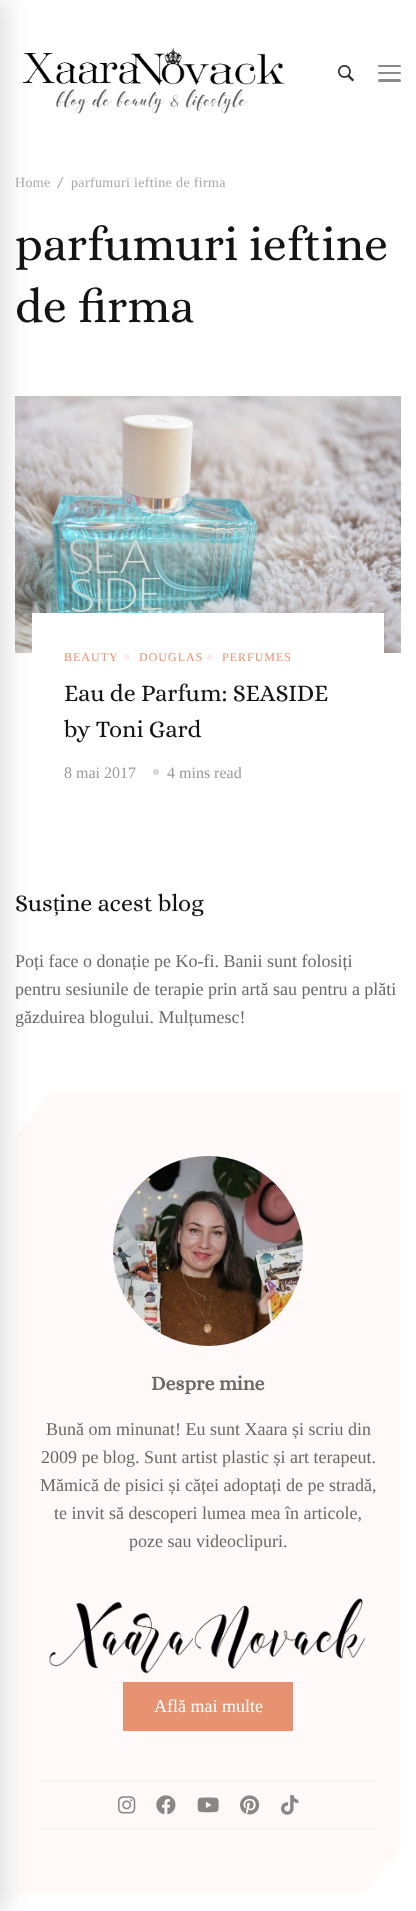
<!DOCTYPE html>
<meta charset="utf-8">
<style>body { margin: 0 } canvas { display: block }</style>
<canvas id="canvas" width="416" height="1911"></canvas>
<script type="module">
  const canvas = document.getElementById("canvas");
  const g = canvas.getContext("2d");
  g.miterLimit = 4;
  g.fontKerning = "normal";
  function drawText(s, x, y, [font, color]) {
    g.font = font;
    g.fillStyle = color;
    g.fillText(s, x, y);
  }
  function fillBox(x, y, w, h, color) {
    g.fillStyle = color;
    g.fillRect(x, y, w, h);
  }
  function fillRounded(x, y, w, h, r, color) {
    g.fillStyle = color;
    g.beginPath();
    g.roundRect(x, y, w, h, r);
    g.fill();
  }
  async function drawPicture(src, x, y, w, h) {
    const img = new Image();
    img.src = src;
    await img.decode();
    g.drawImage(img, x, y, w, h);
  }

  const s1 = ["14px Liberation Serif", "#A8A8A8"];
  const s2 = ["48px Alice", "#141414"];
  const s3 = ["12px Liberation Serif", "#E79372"];
  const s4 = ["24px Alice", "#141414"];
  const s5 = ["16px Liberation Serif", "#9A9A9A"];
  const s6 = ["24px Liberation Serif", "#141414"];
  const s7 = ["18px Liberation Serif", "#686868"];
  const s8 = ["bold 20px Alice", "#686868"];
  const s9 = ["18px Liberation Serif", "#FFFFFF"];

  fillBox(0, 0, 416, 1911, "#FFFFFF");
  await drawPicture("pic1.png", 22, 48, 263, 66);
  await drawPicture("pic3.png", 15, 396, 386, 257);
  fillBox(32, 613, 352, 40, "#FFFFFF");
  fillBox(15, 1092, 386, 801, "#FFFAF9");
  g.save();
  g.beginPath();
  g.rect(15, 1092, 386, 801);
  g.clip();
  g.fillStyle = "#FFFFFF";
  g.beginPath();
  g.moveTo(-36, 1098);
  g.lineTo(4, 1048);
  g.lineTo(54, 1088);
  g.lineTo(14, 1138);
  g.closePath();
  g.fill();
  g.restore();
  fillBox(39, 1781, 338, 1, "#F5F0EF");
  fillBox(39, 1828, 338, 1, "#F5F0EF");
  g.fillStyle = "rgba(87, 87, 87, 0.15)";
  g.filter = "blur(10px)";
  g.beginPath();
  g.rect(-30, 0, 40, 1911);
  g.fill();
  g.filter = "none";
  await drawPicture("pic2.png", 338, 65, 16, 17);
  fillRounded(378, 65, 23, 2, 1, "#898989");
  fillRounded(378, 72, 23, 2, 1, "#898989");
  fillRounded(378, 79, 23, 3, 1.5, "#898989");
  g.letterSpacing = "0.35px";
  drawText("Home", 15, 187, s1);
  g.beginPath();
  g.moveTo(62.5, 177);
  g.lineTo(63.5, 177.5);
  g.lineTo(58, 188.5);
  g.lineTo(57, 188);
  g.closePath();
  g.fill();
  drawText("parfumuri ieftine de firma", 71, 187, s1);
  g.letterSpacing = "0px";
  drawText("parfumuri ieftine", 15, 260, s2);
  drawText("de firma", 15, 322, s2);
  g.letterSpacing = "1px";
  drawText("BEAUTY", 64, 661, s3);
  g.fillStyle = "#FBEFEA";
  g.beginPath();
  g.arc(127, 657, 3, 0, Math.PI * 2);
  g.fill();
  drawText("DOUGLAS", 139, 661, s3);
  g.fillStyle = "#FBEFEA";
  g.beginPath();
  g.arc(210, 657, 3, 0, Math.PI * 2);
  g.fill();
  drawText("PERFUMES", 222, 661, s3);
  g.letterSpacing = "0px";
  drawText("Eau de Parfum: SEASIDE", 64, 701, s4);
  drawText("by Toni Gard", 64, 737, s4);
  drawText("8 mai 2017", 64, 778, s5);
  g.fillStyle = "#D7D7D7";
  g.beginPath();
  g.arc(156, 772, 3, 0, Math.PI * 2);
  g.fill();
  drawText("4 mins read", 167, 778, s5);
  drawText("Sus", 15, 911, s4);
  drawText("ț", 53, 911, s6);
  drawText("ine acest blog", 59, 911, s4);
  drawText("Poți face o donație pe Ko-fi. Banii sunt folosiți", 15, 967, s7);
  drawText("pentru sesiunile de terapie prin artă sau pentru a plăti", 15, 995, s7);
  drawText("găzduirea blogului. Mulțumesc!", 15, 1023, s7);
  await drawPicture("pic4.png", 113, 1156, 190, 190);
  drawText("Despre mine", 151, 1390, s8);
  drawText("Bună om minunat! Eu sunt Xaara și scriu din", 46, 1435, s7);
  drawText("2009 pe blog. Sunt artist plastic și art terapeut.", 41, 1463, s7);
  drawText("Mămică de pisici și căței adoptați de pe stradă,", 40, 1491, s7);
  drawText("te invit să descoperi lumea mea în articole,", 54, 1519, s7);
  drawText("poze sau videoclipuri.", 129, 1547, s7);
  await drawPicture("pic5.png", 49, 1598, 316, 76);
  fillBox(123, 1682, 170, 49, "#E79372");
  drawText("Află mai multe", 154, 1712, s9);
  await drawPicture("pic6.png", 118, 1796, 18, 18);
  await drawPicture("pic7.png", 156, 1795, 20, 20);
  await drawPicture("pic8.png", 197, 1797, 22, 16);
  await drawPicture("pic9.png", 240, 1795, 20, 20);
  await drawPicture("pic10.png", 281, 1795, 18, 20);
  g.save();
  g.beginPath();
  g.rect(15, 1092, 386, 801);
  g.clip();
  g.beginPath();
  g.moveTo(362, 1897);
  g.lineTo(402, 1847);
  g.lineTo(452, 1888);
  g.lineTo(412, 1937);
  g.closePath();
  g.fill();
  g.restore();
</script>
